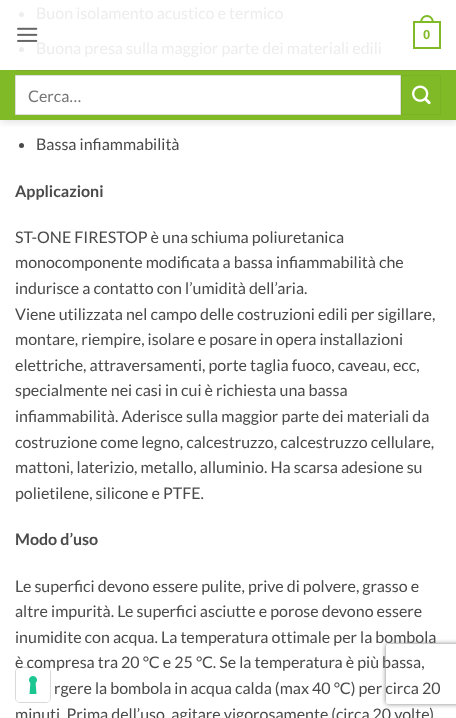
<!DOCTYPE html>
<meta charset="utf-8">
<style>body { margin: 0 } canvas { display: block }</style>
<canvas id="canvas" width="456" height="718"></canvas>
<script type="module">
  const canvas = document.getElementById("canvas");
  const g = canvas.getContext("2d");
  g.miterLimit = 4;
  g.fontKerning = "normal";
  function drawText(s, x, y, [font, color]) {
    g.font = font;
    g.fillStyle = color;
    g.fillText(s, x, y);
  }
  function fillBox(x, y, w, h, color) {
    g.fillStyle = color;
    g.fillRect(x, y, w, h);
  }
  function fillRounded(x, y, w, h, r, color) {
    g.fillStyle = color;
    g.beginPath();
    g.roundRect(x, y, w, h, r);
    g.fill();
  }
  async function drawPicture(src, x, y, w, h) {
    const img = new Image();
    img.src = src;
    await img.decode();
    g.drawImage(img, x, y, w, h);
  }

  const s1 = ["16px Lato", "#EDEDED"];
  const s2 = ["16px Lato", "#4A4A4A"];
  const s3 = ["bold 16px Lato", "#4A4A4A"];
  const s4 = ["bold 13px Liberation Sans", "#80BA27"];
  const s5 = ["16px Lato", "#757575"];

  fillBox(0, 0, 456, 718, "#FFFFFF");
  g.fillStyle = "#EDEDED";
  g.beginPath();
  g.arc(21.5, 14.5, 2.5, 0, Math.PI * 2);
  g.fill();
  drawText("Buon isolamento acustico e termico", 36, 19, s1);
  g.beginPath();
  g.arc(21.5, 49.5, 2.5, 0, Math.PI * 2);
  g.fill();
  drawText("Buona presa sulla maggior parte dei materiali edili", 36, 54, s1);
  g.fillStyle = "#4A4A4A";
  g.beginPath();
  g.arc(21.5, 145.5, 2.5, 0, Math.PI * 2);
  g.fill();
  drawText("Bassa infiammabilità", 36, 150, s2);
  drawText("Applicazioni", 15, 197, s3);
  drawText("ST-ONE FIRESTOP è una schiuma poliuretanica", 15, 243, s2);
  drawText("monocomponente modificata a bassa infiammabilità che", 15, 268, s2);
  drawText("indurisce a contatto con l’umidità dell’aria.", 15, 294, s2);
  drawText("Viene utilizzata nel campo delle costruzioni edili per sigillare,", 15, 320, s2);
  drawText("montare, riempire, isolare e posare in opera installazioni", 15, 345, s2);
  drawText("elettriche, attraversamenti, porte taglia fuoco, caveau, ecc,", 15, 371, s2);
  drawText("specialmente nei casi in cui è richiesta una bassa", 15, 396, s2);
  drawText("infiammabilità. Aderisce sulla maggior parte dei materiali da", 15, 422, s2);
  drawText("costruzione come legno, calcestruzzo, calcestruzzo cellulare,", 15, 448, s2);
  drawText("mattoni, laterizio, metallo, alluminio. Ha scarsa adesione su", 15, 473, s2);
  drawText("polietilene, silicone e PTFE.", 15, 499, s2);
  drawText("Modo d’uso", 15, 545, s3);
  drawText("Le superfici devono essere pulite, prive di polvere, grasso e", 15, 592, s2);
  drawText("altre impurità. Le superfici asciutte e porose devono essere", 15, 617, s2);
  drawText("inumidite con acqua. La temperatura ottimale per la bombola", 15, 643, s2);
  drawText("è compresa tra 20 °C e 25 °C. Se la temperatura è più bassa,", 15, 668, s2);
  drawText("rgere la bombola in acqua calda (max 40 °C) per circa 20", 54, 694, s2);
  drawText("minuti. Prima dell’uso, agitare vigorosamente (circa 20 volte)", 15, 720, s2);
  g.save();
  g.beginPath();
  g.rect(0, 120, 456, 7);
  g.clip();
  g.fillStyle = "rgba(0, 0, 0, 0.15)";
  g.filter = "blur(5px)";
  g.beginPath();
  g.rect(1, 1, 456, 120);
  g.fill();
  g.filter = "none";
  g.restore();
  await drawPicture("pic1.png", 17, 27, 21, 15);
  g.strokeStyle = "#80BA27";
  g.lineWidth = 2;
  g.strokeRect(414, 22, 26, 26);
  g.fillStyle = "#80BA27";
  g.beginPath();
  g.moveTo(427, 15);
  g.bezierCurveTo(431.5, 15, 434, 19, 434, 23);
  g.lineTo(420, 23);
  g.bezierCurveTo(420, 19, 422.5, 15, 427, 15);
  g.closePath();
  g.moveTo(427, 17);
  g.bezierCurveTo(430.5, 17, 432, 20, 432, 23);
  g.lineTo(422, 23);
  g.bezierCurveTo(422, 20, 423.5, 17, 427, 17);
  g.closePath();
  g.fill("evenodd");
  drawText("0", 423, 39, s4);
  fillBox(0, 70, 456, 50, "#80BA27");
  fillBox(15, 70, 426, 1, "#7BAF2B");
  g.fillStyle = "#FFFFFF";
  g.beginPath();
  g.rect(15.5, 75.5, 385, 39);
  g.fill();
  g.strokeStyle = "#DDDDDD";
  g.lineWidth = 1;
  g.stroke();
  drawText("Cerca…", 28, 102, s5);
  g.strokeStyle = "#7AB125";
  g.strokeRect(401.5, 75.5, 39, 39);
  await drawPicture("pic2.png", 412, 85, 19, 20);
  g.beginPath();
  g.roundRect(15.5, 667.5, 35, 35, 4.5);
  g.strokeStyle = "rgba(0, 0, 0, 0.15)";
  g.stroke();
  fillRounded(16, 668, 34, 34, 4, "#FFFFFF");
  await drawPicture("pic3.png", 29, 676, 8, 18);
  g.save();
  g.beginPath();
  g.moveTo(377, 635);
  g.lineTo(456, 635);
  g.lineTo(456, 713);
  g.lineTo(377, 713);
  g.closePath();
  g.moveTo(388, 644);
  g.lineTo(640, 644);
  g.bezierCurveTo(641, 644, 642, 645, 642, 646);
  g.lineTo(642, 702);
  g.bezierCurveTo(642, 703, 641, 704, 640, 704);
  g.lineTo(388, 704);
  g.bezierCurveTo(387, 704, 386, 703, 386, 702);
  g.lineTo(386, 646);
  g.bezierCurveTo(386, 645, 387, 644, 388, 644);
  g.closePath();
  g.clip("evenodd");
  g.fillStyle = "#808080";
  g.filter = "blur(2.5px)";
  g.beginPath();
  g.roundRect(386, 644, 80, 60, 2);
  g.fill();
  g.filter = "none";
  g.restore();
</script>
